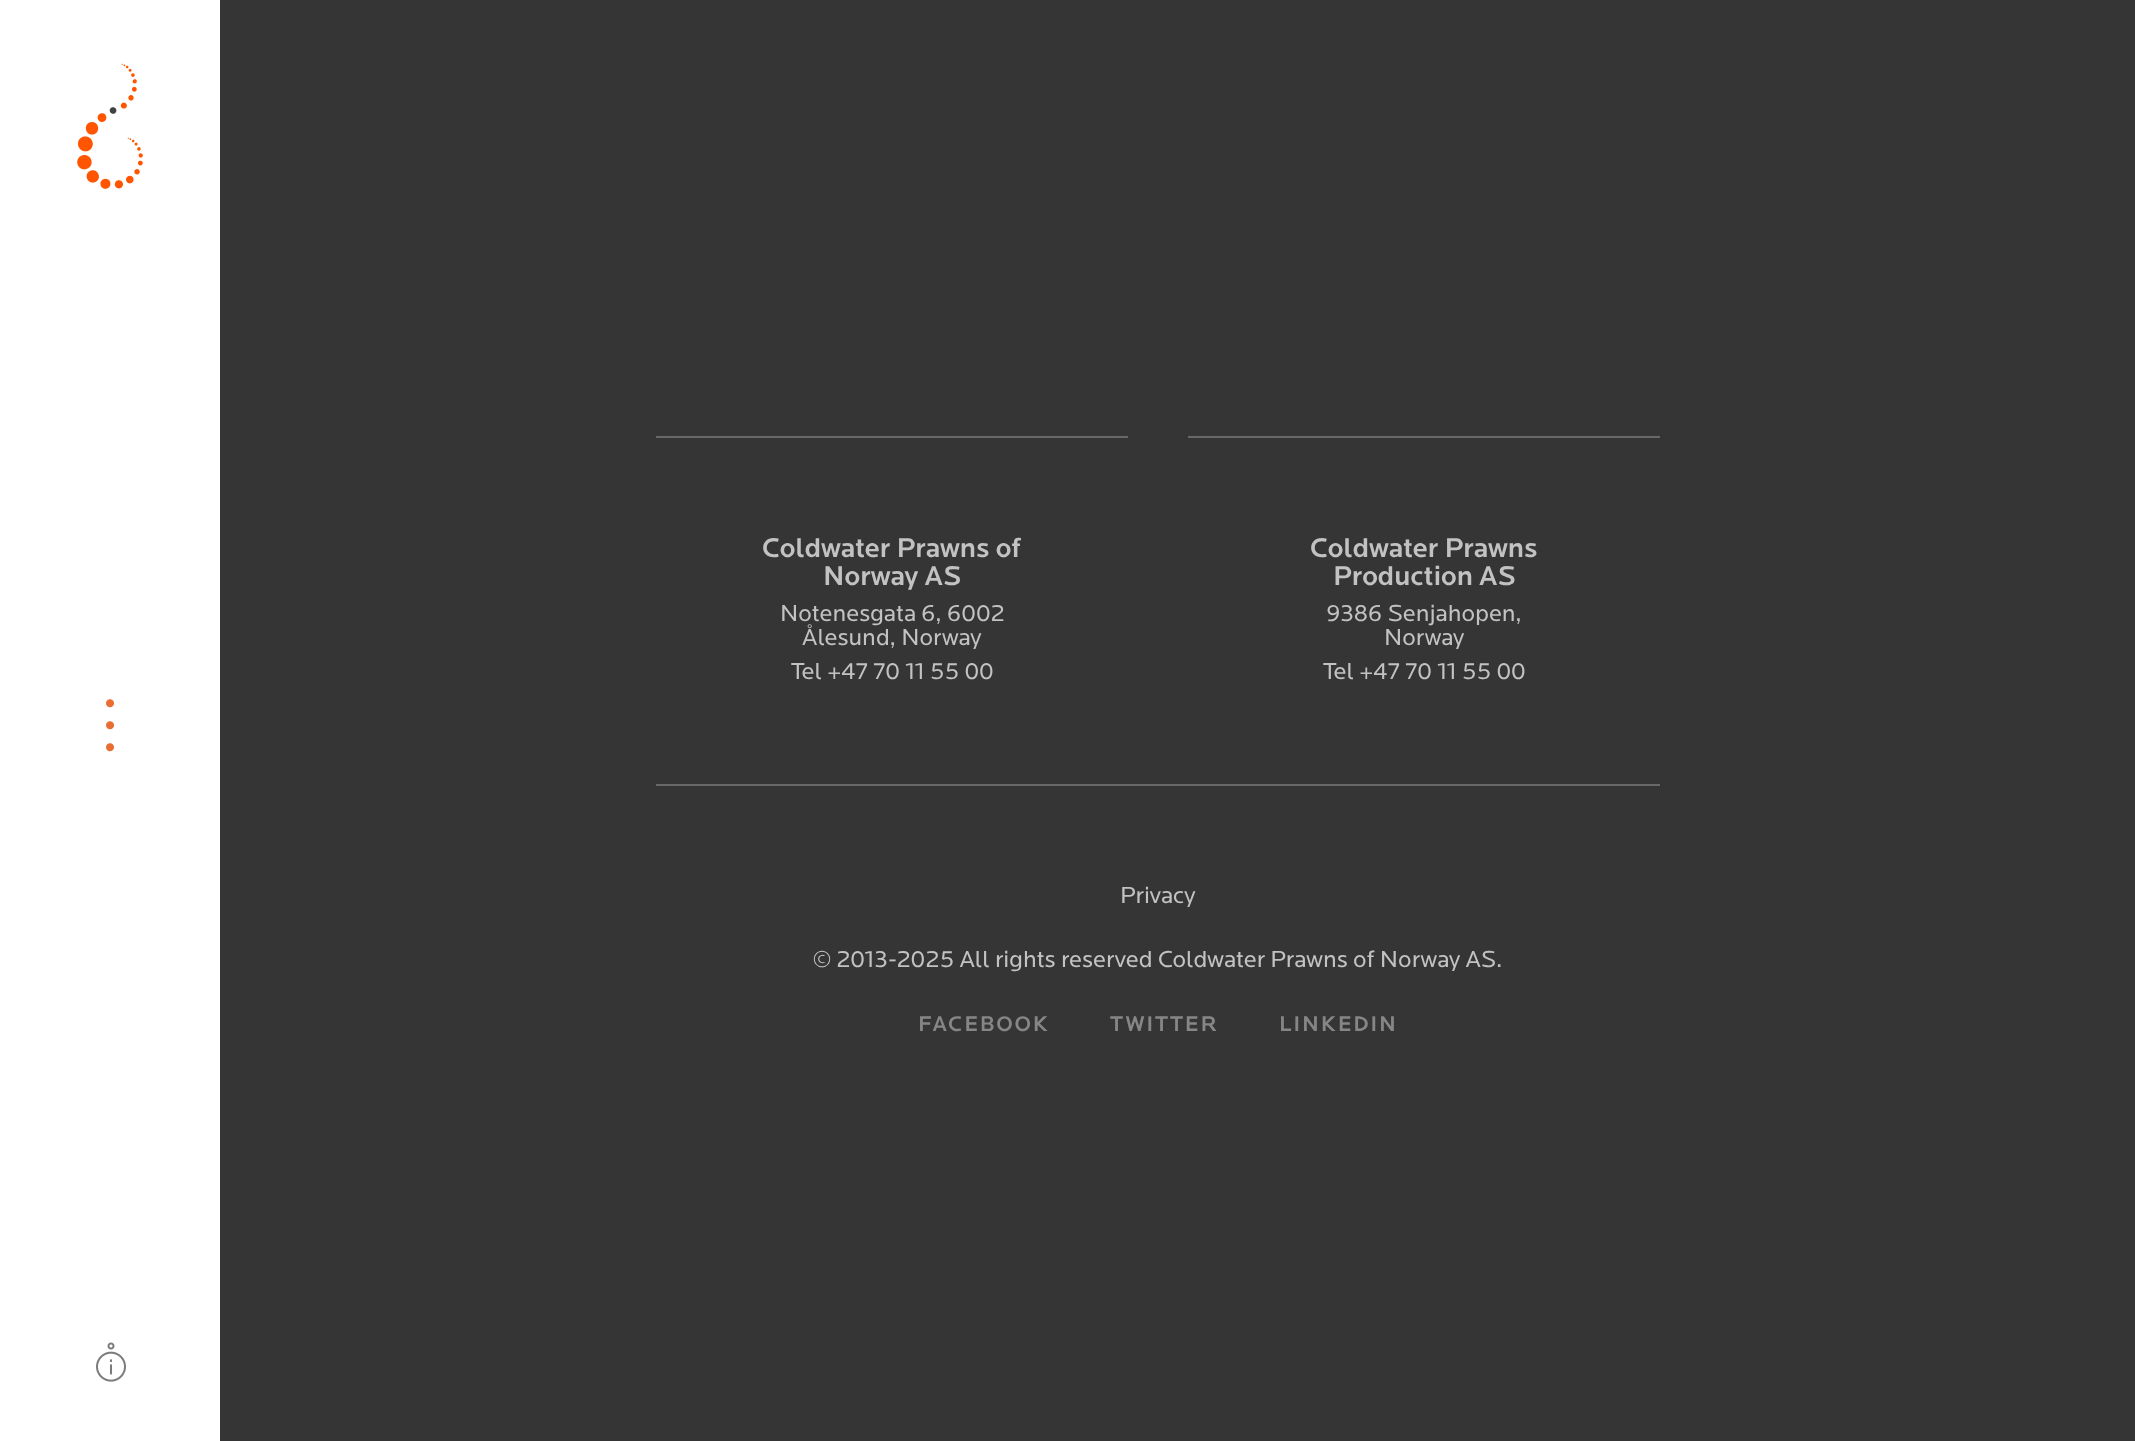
<!DOCTYPE html>
<meta charset="utf-8">
<style>body { margin: 0 } canvas { display: block }</style>
<canvas id="canvas" width="2135" height="1441"></canvas>
<script type="module">
  const canvas = document.getElementById("canvas");
  const g = canvas.getContext("2d");
  g.miterLimit = 4;
  g.fontKerning = "normal";
  function drawText(s, x, y, [font, color]) {
    g.font = font;
    g.fillStyle = color;
    g.fillText(s, x, y);
  }
  function fillBox(x, y, w, h, color) {
    g.fillStyle = color;
    g.fillRect(x, y, w, h);
  }
  async function drawPicture(src, x, y, w, h) {
    const img = new Image();
    img.src = src;
    await img.decode();
    g.drawImage(img, x, y, w, h);
  }

  const s1 = ["500 28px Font", "#C2C2C2"];
  const s2 = ["24px Font", "#C2C2C2"];
  const s3 = ["500 22px Font", "#868686"];

  fillBox(0, 0, 2135, 1441, "#353535");
  fillBox(0, 0, 220, 1441, "#FFFFFF");
  await drawPicture("pic1.png", 77, 63, 66, 126);
  await drawPicture("pic2.png", 106, 699, 8, 53);
  await drawPicture("pic3.png", 96, 1342, 30, 40);
  fillBox(656, 436, 472, 2, "#686868");
  drawText("Coldwater Prawns of", 762, 557, s1);
  drawText("Norway AS", 823, 585, s1);
  drawText("Notenesgata 6, 6002", 780, 621, s2);
  drawText("Ålesund, Norway", 802, 645, s2);
  drawText("Tel +47 70 11 55 00", 791, 679, s2);
  fillBox(1188, 436, 472, 2, "#686868");
  drawText("Coldwater Prawns", 1310, 557, s1);
  drawText("Production AS", 1333, 585, s1);
  drawText("9386 Senjahopen,", 1326, 621, s2);
  drawText("Norway", 1384, 645, s2);
  drawText("Tel +47 70 11 55 00", 1323, 679, s2);
  fillBox(656, 784, 1004, 2, "#686868");
  drawText("Privacy", 1120, 903, s2);
  drawText("© 2013-2025 All rights reserved Coldwater Prawns of Norway AS.", 813, 967, s2);
  g.letterSpacing = "1.75px";
  drawText("FACEBOOK", 918, 1031, s3);
  drawText("TWITTER", 1110, 1031, s3);
  drawText("LINKEDIN", 1279, 1031, s3);
</script>
